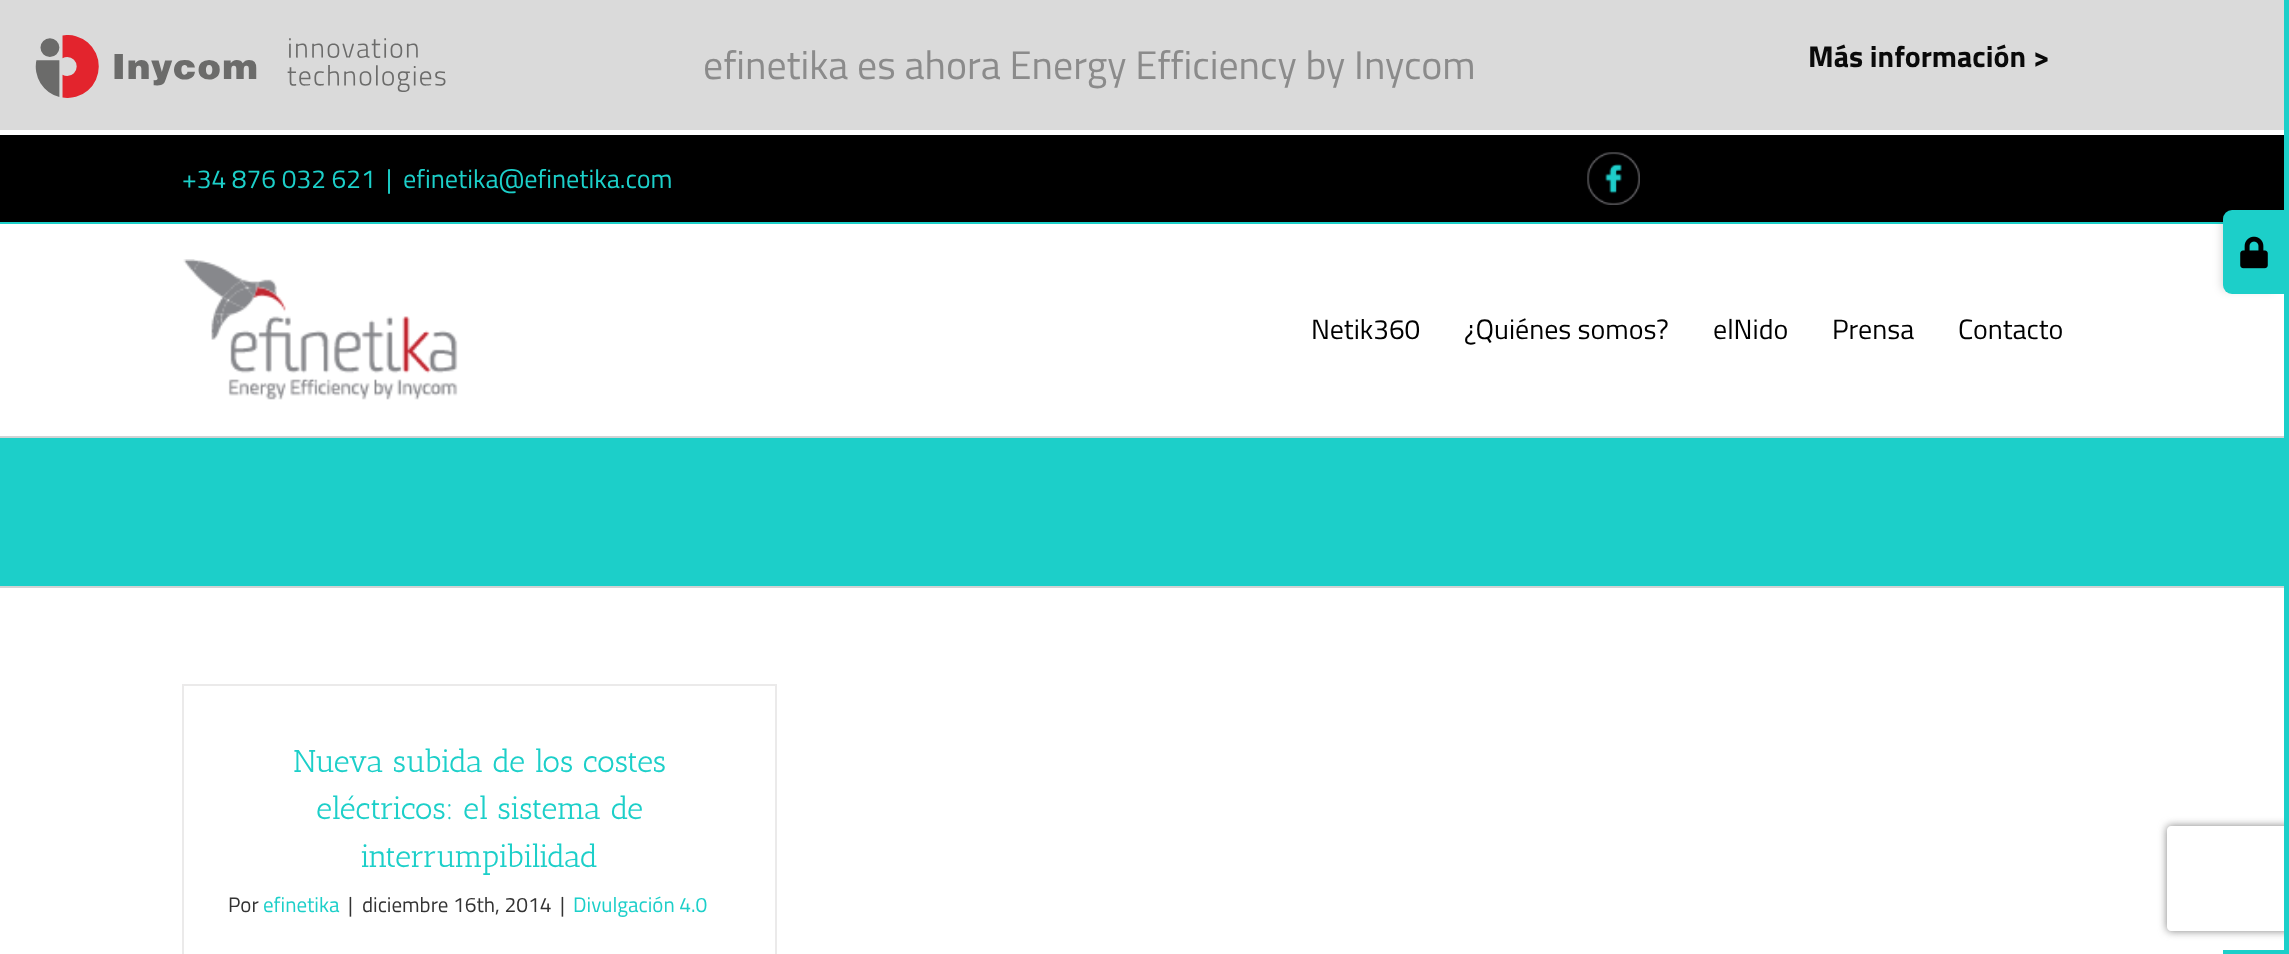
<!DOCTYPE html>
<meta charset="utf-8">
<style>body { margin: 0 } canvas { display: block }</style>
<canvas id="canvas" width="2289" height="954"></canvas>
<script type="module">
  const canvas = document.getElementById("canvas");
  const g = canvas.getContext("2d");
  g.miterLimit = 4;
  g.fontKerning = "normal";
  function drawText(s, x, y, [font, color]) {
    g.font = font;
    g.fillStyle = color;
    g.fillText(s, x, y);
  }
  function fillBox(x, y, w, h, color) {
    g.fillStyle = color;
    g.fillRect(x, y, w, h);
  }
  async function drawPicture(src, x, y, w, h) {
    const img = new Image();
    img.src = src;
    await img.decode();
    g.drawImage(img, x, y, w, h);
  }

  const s1 = ["39.9px Titillium Web", "#8B8B8B"];
  const s2 = ["bold 30px Titillium Web", "#0A0A0A"];
  const s3 = ["26.25px Titillium Web", "#1CCFC9"];
  const s4 = ["28px Titillium Web", "#000000"];
  const s5 = ["31.5px Antic Slab", "#1CCFC9"];
  const s6 = ["21px Titillium Web", "#333333"];
  const s7 = ["21px Titillium Web", "#1CCFC9"];

  fillBox(0, 0, 2289, 954, "#FFFFFF");
  fillBox(0, 0, 2284, 130, "#DADADA");
  await drawPicture("pic1.png", 35, 35, 411, 63);
  drawText("efinetika es ahora Energy Efficiency by Inycom", 703, 79, s1);
  drawText("Más información >", 1808, 67, s2);
  fillBox(0, 135, 2284, 87, "#000000");
  fillBox(0, 222, 2223, 2, "#1CCFC9");
  drawText("+34 876 032 621", 182, 188, s3);
  drawText("|", 386, 188, s3);
  drawText("efinetika@efinetika.com", 403, 188, s3);
  await drawPicture("pic2.png", 1587, 152, 53, 53);
  await drawPicture("pic3.png", 183, 259, 275, 141);
  drawText("Netik360", 1311, 339, s4);
  drawText("¿Quiénes somos?", 1464, 339, s4);
  drawText("elNido", 1713, 339, s4);
  drawText("Prensa", 1832, 339, s4);
  drawText("Contacto", 1958, 339, s4);
  fillBox(2223, 950, 66, 4, "#1CCFC9");
  g.fillStyle = "rgba(0, 0, 0, 0.14)";
  g.filter = "blur(4.5px)";
  g.beginPath();
  g.roundRect(2221, 214, 54, 77, 5);
  g.fill();
  g.filter = "none";
  fillBox(0, 436, 2289, 2, "#D2D3D4");
  fillBox(0, 586, 2289, 2, "#D2D3D4");
  g.save();
  g.beginPath();
  g.moveTo(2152, 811);
  g.lineTo(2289, 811);
  g.lineTo(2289, 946);
  g.lineTo(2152, 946);
  g.closePath();
  g.moveTo(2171, 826);
  g.lineTo(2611, 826);
  g.bezierCurveTo(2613, 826, 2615, 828, 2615, 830);
  g.lineTo(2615, 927);
  g.bezierCurveTo(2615, 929, 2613, 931, 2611, 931);
  g.lineTo(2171, 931);
  g.bezierCurveTo(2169, 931, 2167, 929, 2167, 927);
  g.lineTo(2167, 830);
  g.bezierCurveTo(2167, 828, 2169, 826, 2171, 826);
  g.closePath();
  g.clip("evenodd");
  g.fillStyle = "#808080";
  g.filter = "blur(4.5px)";
  g.beginPath();
  g.roundRect(2167, 826, 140, 105, 4);
  g.fill();
  g.filter = "none";
  g.restore();
  fillBox(2284, 0, 5, 950, "#1CCFC9");
  g.beginPath();
  g.roundRect(2223, 210, 61, 84, [9, 0, 0, 9]);
  g.fill();
  await drawPicture("pic4.png", 2240, 236, 28, 33);
  fillBox(0, 438, 2284, 148, "#1CCFC9");
  fillBox(182, 684, 595, 2, "#EBEAEA");
  fillBox(775, 684, 2, 270, "#EBEAEA");
  fillBox(182, 684, 2, 270, "#EBEAEA");
  drawText("Nueva subida de los costes", 293, 772, s5);
  drawText("eléctricos: el sistema de", 316, 819, s5);
  drawText("interrumpibilidad", 360, 867, s5);
  drawText("Por", 228, 912, s6);
  drawText("efinetika", 263, 912, s7);
  drawText("|", 348, 912, s6);
  drawText("diciembre 16th, 2014", 362, 912, s6);
  drawText("|", 560, 912, s6);
  drawText("Divulgación 4.0", 573, 912, s7);
</script>
